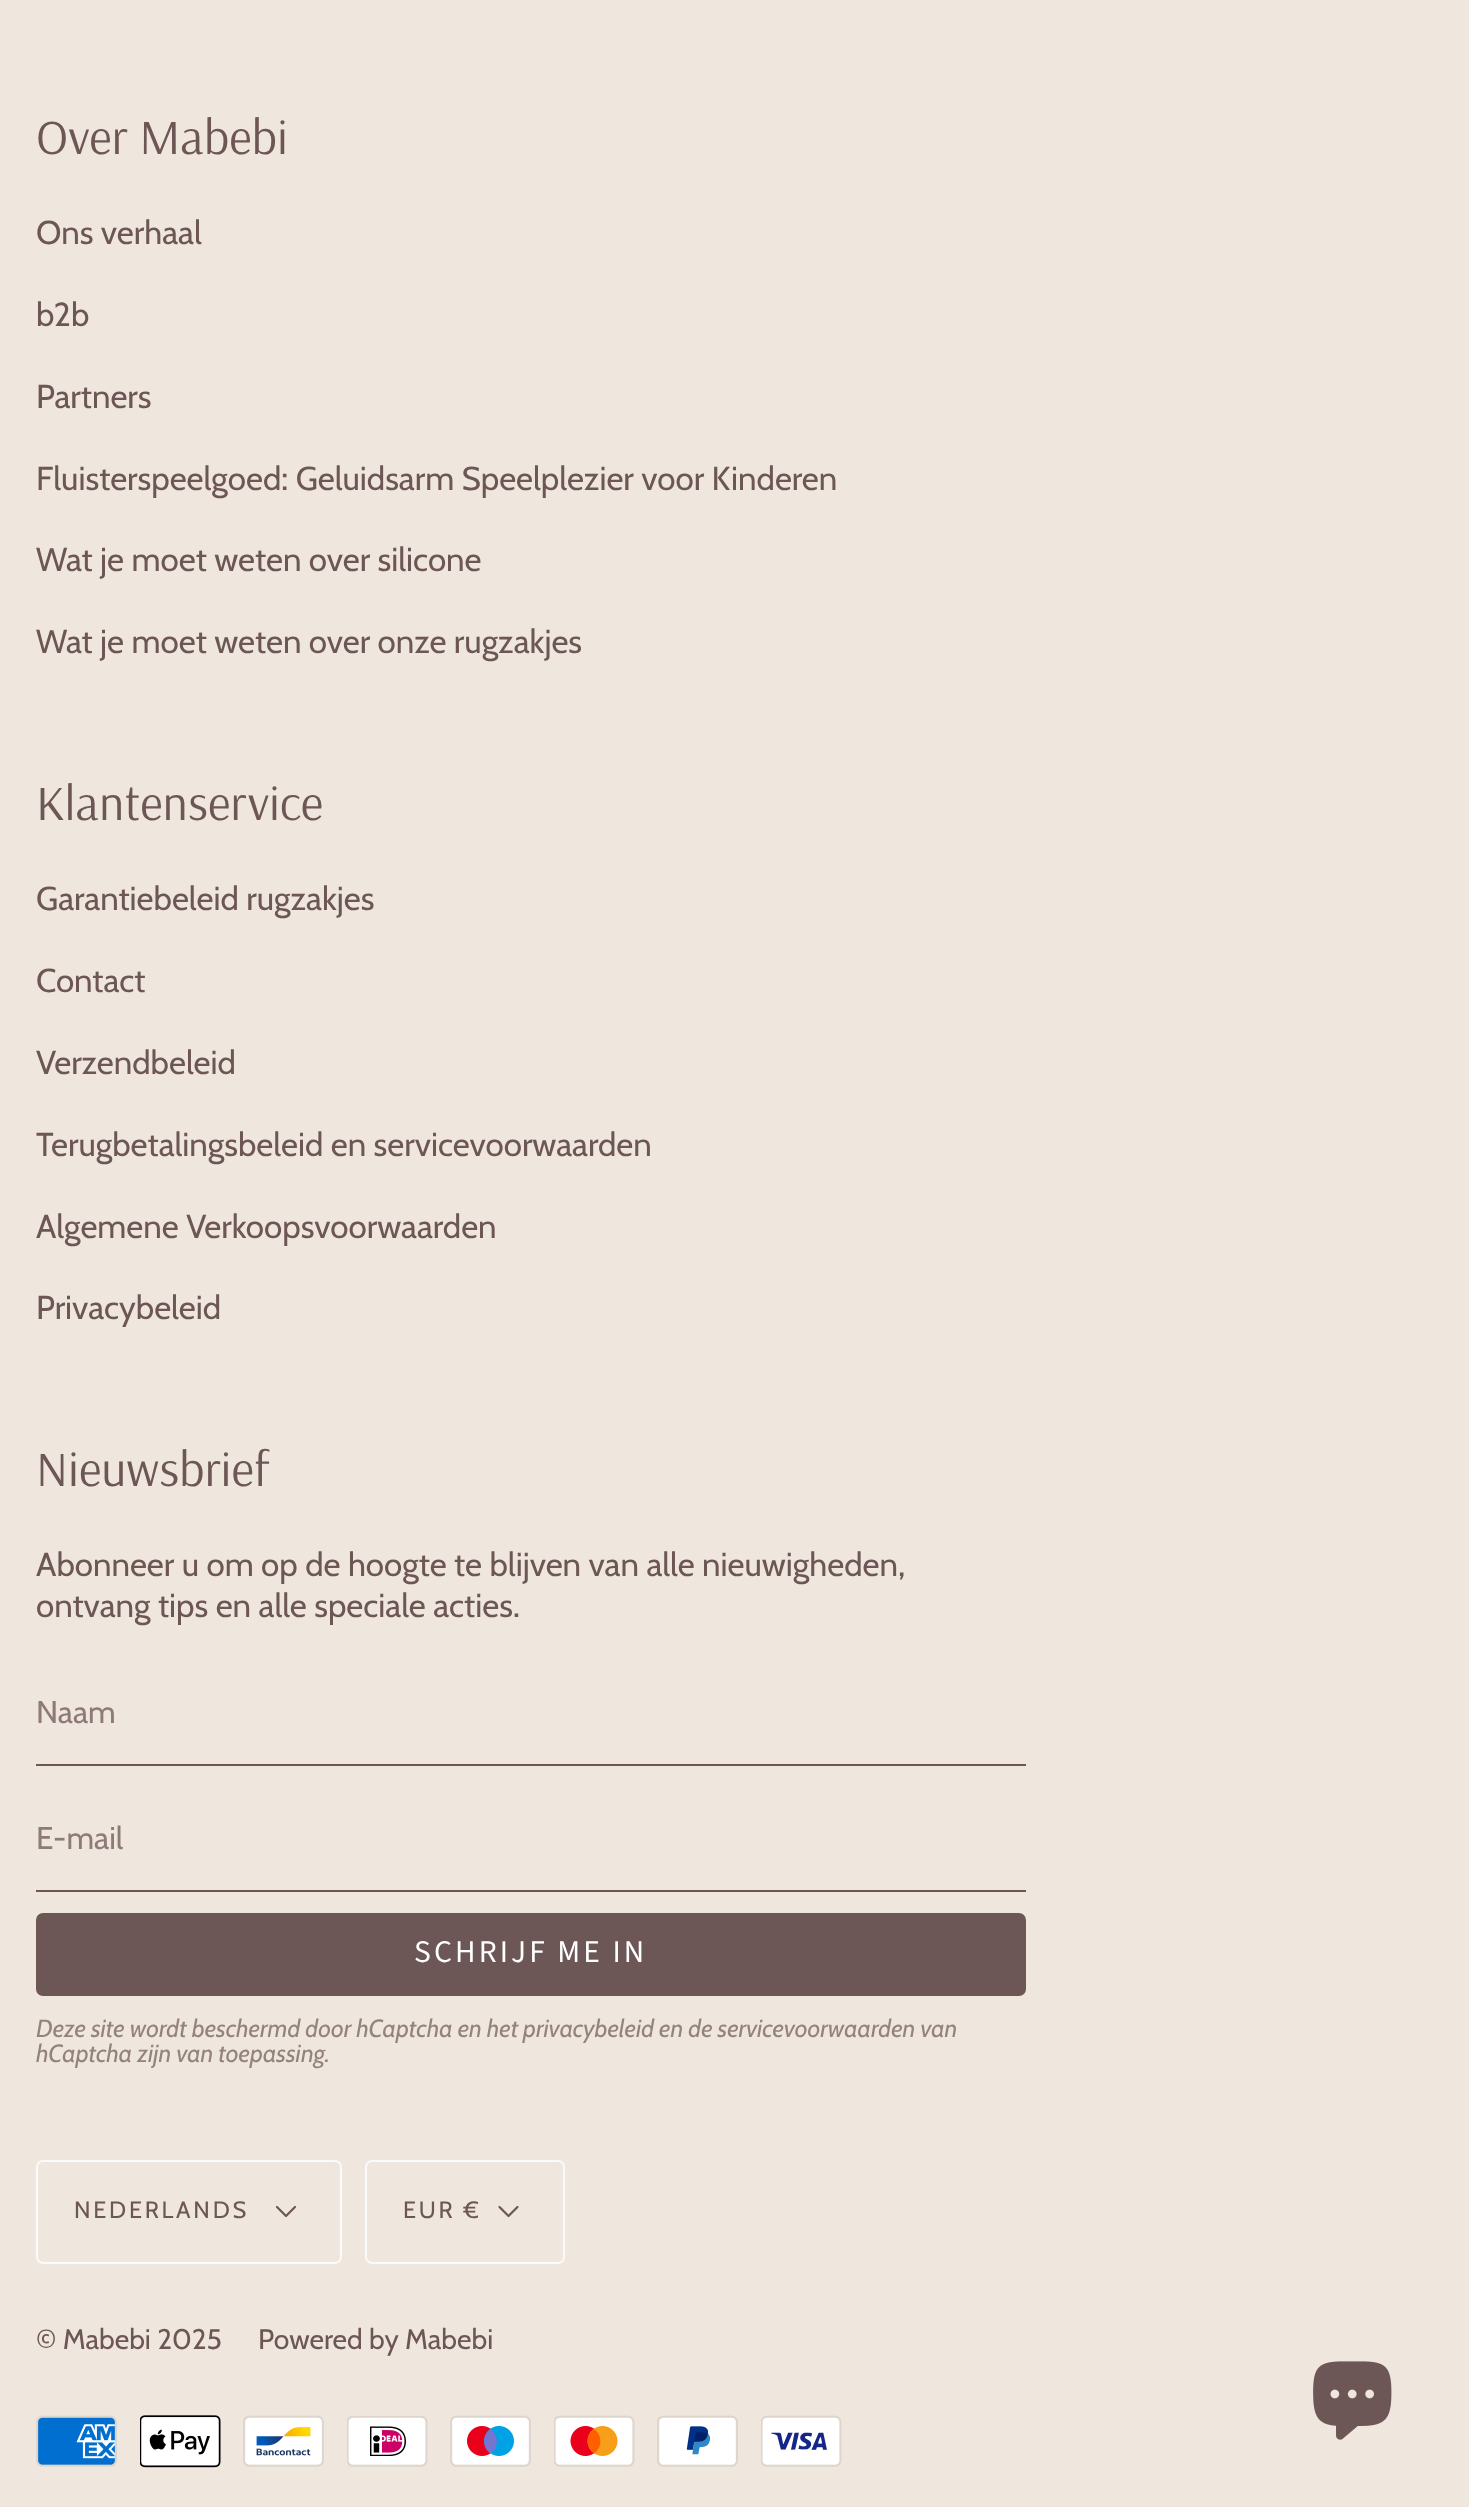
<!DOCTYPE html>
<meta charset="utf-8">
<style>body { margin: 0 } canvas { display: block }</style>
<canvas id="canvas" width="1469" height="2507"></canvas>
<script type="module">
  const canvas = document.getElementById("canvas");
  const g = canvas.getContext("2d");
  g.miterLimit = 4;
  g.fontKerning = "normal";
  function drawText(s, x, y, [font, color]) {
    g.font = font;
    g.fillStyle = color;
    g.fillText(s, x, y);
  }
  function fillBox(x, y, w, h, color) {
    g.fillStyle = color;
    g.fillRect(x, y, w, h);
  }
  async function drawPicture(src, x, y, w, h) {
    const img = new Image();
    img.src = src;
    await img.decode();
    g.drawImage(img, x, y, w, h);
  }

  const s1 = ["49.25px Arsenal", "#6D5656"];
  const s2 = ["33.1px Cabin", "#6D5656"];
  const s3 = ["31.5px Cabin", "#8E7A78"];
  const s4 = ["31.5px Source Sans Pro", "#FFFFFF"];
  const s5 = ["italic 24.8px Cabin", "#94827F"];
  const s6 = ["23.5px Cabin", "#6D5656"];
  const s7 = ["28.25px Cabin", "#6D5656"];

  fillBox(0, 0, 1469, 2507, "#EFE7DD");
  drawText("Over Mabebi", 36, 154, s1);
  drawText("Ons verhaal", 36, 244, s2);
  drawText("b2b", 36, 326, s2);
  drawText("Partners", 36, 408, s2);
  drawText("Fluisterspeelgoed: Geluidsarm Speelplezier voor Kinderen", 36, 490, s2);
  drawText("Wat je moet weten over silicone", 36, 571, s2);
  drawText("Wat je moet weten over onze rugzakjes", 36, 653, s2);
  drawText("Klantenservice", 36, 820, s1);
  drawText("Garantiebeleid rugzakjes", 36, 910, s2);
  drawText("Contact", 36, 992, s2);
  drawText("Verzendbeleid", 36, 1074, s2);
  drawText("Terugbetalingsbeleid en servicevoorwaarden", 36, 1156, s2);
  drawText("Algemene Verkoopsvoorwaarden", 36, 1238, s2);
  drawText("Privacybeleid", 36, 1319, s2);
  drawText("Nieuwsbrief", 36, 1486, s1);
  drawText("Abonneer u om op de hoogte te blijven van alle nieuwigheden,", 36, 1576, s2);
  drawText("ontvang tips en alle speciale acties.", 36, 1617, s2);
  fillBox(36, 1764, 990, 2, "#6D5656");
  drawText("Naam", 36, 1723, s3);
  fillBox(36, 1890, 990, 2, "#6D5656");
  drawText("E-mail", 36, 1849, s3);
  g.fillStyle = "#6D5656";
  g.beginPath();
  g.roundRect(37, 1914, 988, 81, 6);
  g.fill();
  g.strokeStyle = "#6D5656";
  g.lineWidth = 2;
  g.stroke();
  g.letterSpacing = "3.1px";
  drawText("SCHRIJF ME IN", 414, 1962, s4);
  g.letterSpacing = "0px";
  drawText("Deze site wordt beschermd door hCaptcha en het", 36, 2037, s5);
  drawText("privacybeleid en de servicevoorwaarden van", 523, 2037, s5);
  drawText("hCaptcha zijn van toepassing.", 36, 2062, s5);
  g.beginPath();
  g.roundRect(37, 2161, 304, 102, 6);
  g.strokeStyle = "#FAFAFA";
  g.stroke();
  g.letterSpacing = "2.75px";
  drawText("NEDERLANDS", 74, 2218, s6);
  g.beginPath();
  g.moveTo(277, 2207);
  g.lineTo(286, 2216);
  g.lineTo(295, 2207);
  g.strokeStyle = "#6D5656";
  g.lineWidth = 2.2;
  g.lineCap = "round";
  g.lineJoin = "round";
  g.stroke();
  g.beginPath();
  g.roundRect(366, 2161, 198, 102, 6);
  g.strokeStyle = "#FAFAFA";
  g.lineWidth = 2;
  g.lineJoin = "miter";
  g.stroke();
  drawText("EUR €", 403, 2218, s6);
  g.beginPath();
  g.moveTo(499.5, 2207);
  g.lineTo(508.5, 2216);
  g.lineTo(517.5, 2207);
  g.strokeStyle = "#6D5656";
  g.lineWidth = 2.2;
  g.lineJoin = "round";
  g.stroke();
  g.letterSpacing = "0px";
  drawText("© Mabebi 2025", 36, 2349, s7);
  drawText("Powered by Mabebi", 258, 2349, s7);
  await drawPicture("pic1.png", 36, 2415, 81, 52);
  await drawPicture("pic2.png", 140, 2415, 81, 53);
  await drawPicture("pic3.png", 243, 2415, 81, 52);
  await drawPicture("pic4.png", 347, 2416, 81, 51);
  await drawPicture("pic5.png", 450, 2415, 81, 52);
  await drawPicture("pic6.png", 554, 2415, 81, 52);
  await drawPicture("pic7.png", 657, 2415, 81, 52);
  await drawPicture("pic8.png", 761, 2415, 81, 52);
  await drawPicture("pic9.png", 1313, 2361, 79, 79);
</script>
